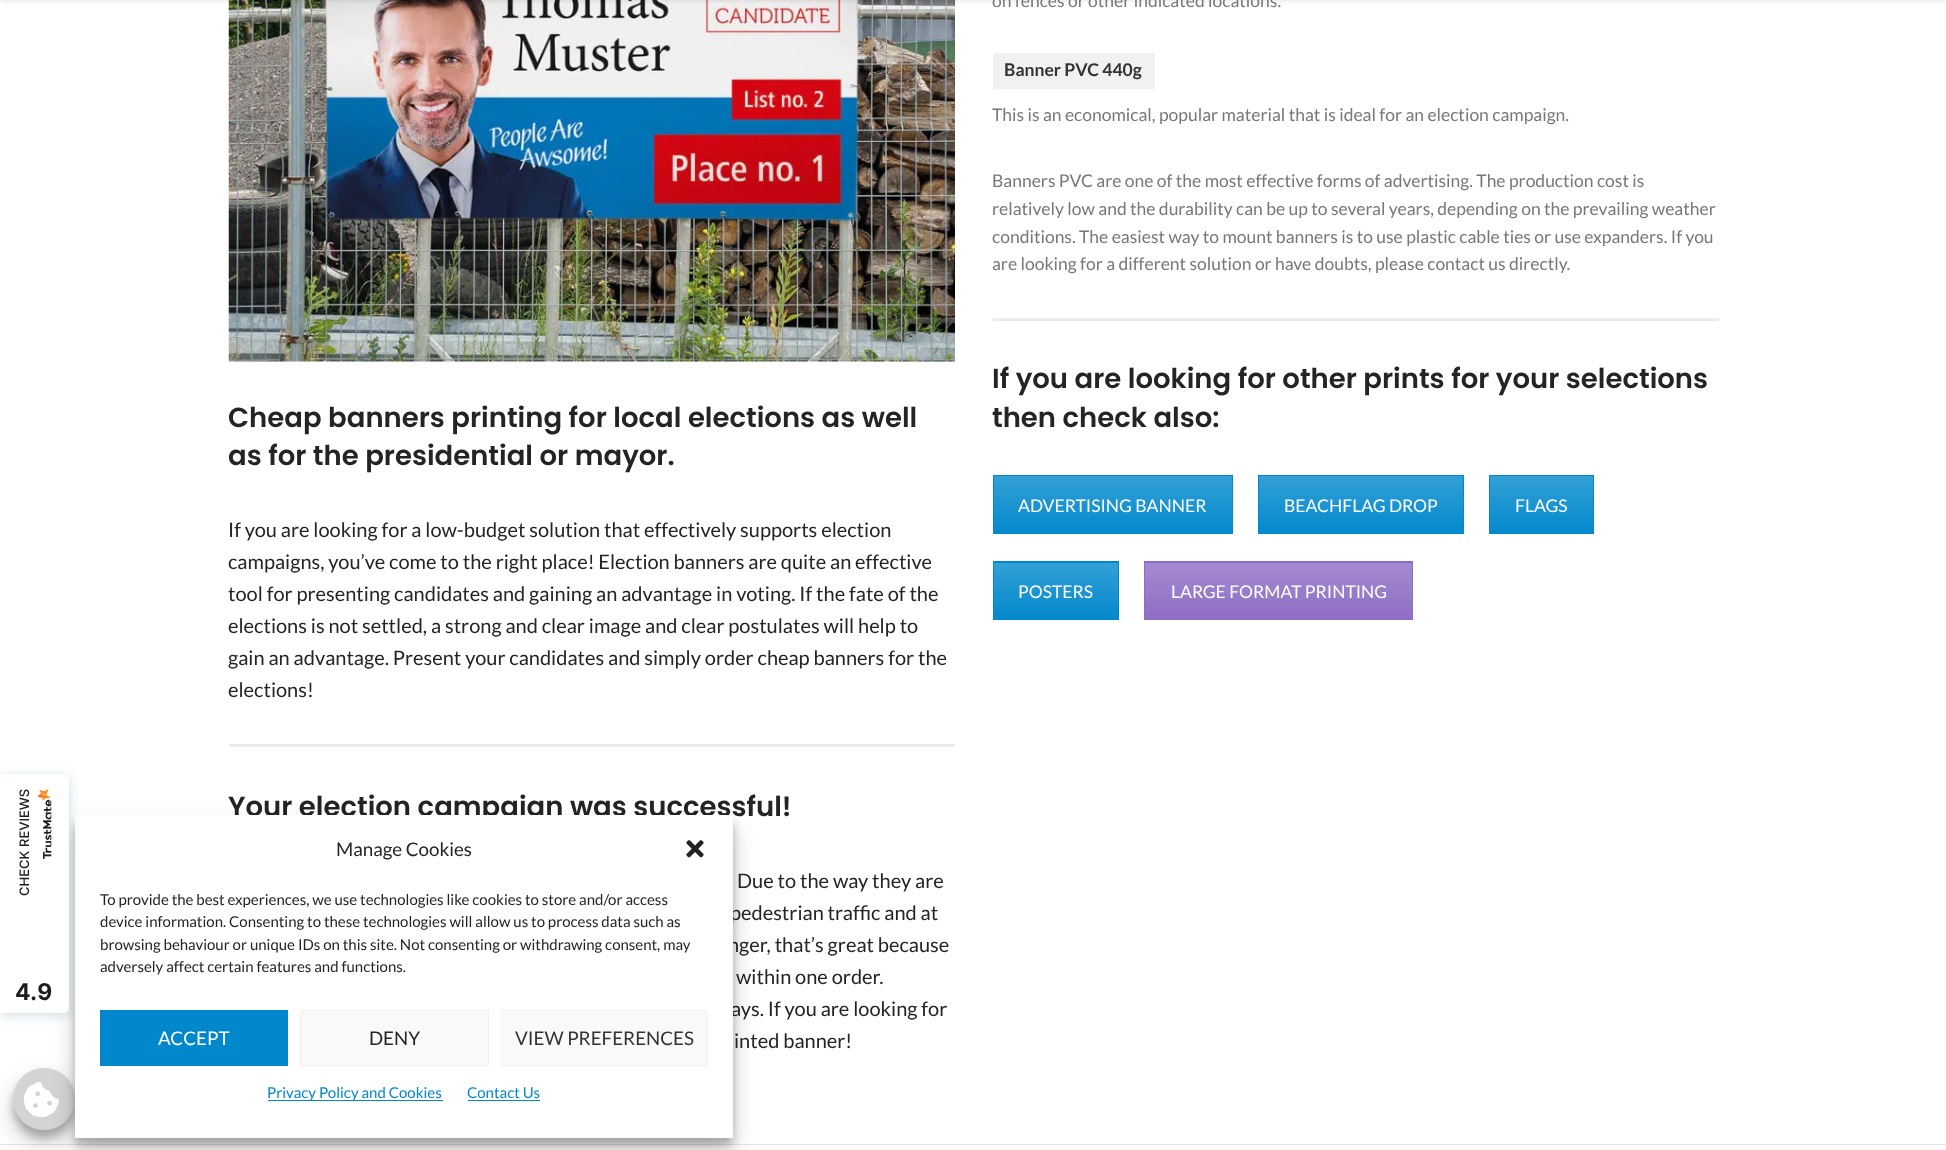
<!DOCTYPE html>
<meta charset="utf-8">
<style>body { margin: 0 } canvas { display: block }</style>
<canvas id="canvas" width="1946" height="1150"></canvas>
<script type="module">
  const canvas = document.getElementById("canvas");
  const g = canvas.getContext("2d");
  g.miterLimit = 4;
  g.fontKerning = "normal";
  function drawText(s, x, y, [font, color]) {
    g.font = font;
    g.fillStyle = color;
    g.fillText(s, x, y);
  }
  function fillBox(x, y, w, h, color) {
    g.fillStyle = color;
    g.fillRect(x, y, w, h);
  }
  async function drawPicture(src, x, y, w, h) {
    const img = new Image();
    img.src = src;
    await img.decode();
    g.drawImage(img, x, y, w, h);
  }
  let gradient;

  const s1 = ["600 27.5px Poppins", "#242424"];
  const s2 = ["20px Lato", "#242424"];
  const s3 = ["bold 23px Inter", "#1D1D1B"];
  const s4 = ["17.5px Lato", "#777777"];
  const s5 = ["bold 17.5px Lato", "#333333"];
  const s6 = ["17.5px Lato", "#FFFFFF"];
  const s7 = ["18.75px Lato", "#242424"];
  const s8 = ["15px Lato", "#242424"];
  const s9 = ["18.75px Lato", "#FFFFFF"];
  const s10 = ["18.75px Lato", "#333333"];
  const s11 = ["15px Lato", "#0188CC"];

  fillBox(0, 0, 1946, 1150, "#FFFFFF");
  drawText("Your election campaign was successful!", 228, 816, s1);
  drawText("pedestrian traffic and at", 730, 920, s2);
  drawText("nger, that’s great because", 728, 952, s2);
  drawText("ays. If you are looking for", 731, 1016, s2);
  fillBox(0, 1144, 1946, 1, "#E4E4E4");
  g.fillStyle = "rgba(0, 0, 0, 0.23)";
  g.filter = "blur(4px)";
  g.beginPath();
  g.roundRect(13, 1075, 62, 63, 31);
  g.fill();
  g.filter = "none";
  g.fillStyle = "rgba(0, 0, 0, 0.19)";
  g.filter = "blur(12.5px)";
  g.beginPath();
  g.roundRect(13, 1080, 62, 63, 31);
  g.fill();
  g.filter = "none";
  g.fillStyle = "#D4D4D4";
  g.beginPath();
  g.arc(44, 1099, 31, 0, Math.PI * 2);
  g.fill();
  g.fillStyle = "rgba(0, 0, 0, 0.23)";
  g.filter = "blur(4px)";
  g.beginPath();
  g.rect(75, 823, 658, 322);
  g.fill();
  g.filter = "none";
  await drawPicture("pic3.png", 23, 1082, 36, 36);
  g.fillStyle = "rgba(0, 0, 0, 0.19)";
  g.filter = "blur(12.5px)";
  g.beginPath();
  g.rect(75, 828, 658, 322);
  g.fill();
  g.filter = "none";
  fillBox(75, 815, 658, 323, "#FFFFFF");
  g.fillStyle = "rgba(11, 86, 128, 0.2)";
  g.filter = "blur(6px)";
  g.beginPath();
  g.roundRect(0, 776, 69, 239, 5);
  g.fill();
  g.filter = "none";
  g.fillStyle = "#FFFFFF";
  g.beginPath();
  g.roundRect(0, 774, 69, 239, [0, 5, 5, 0]);
  g.fill();
  g.font = "500 13px Inter";
  g.fillStyle = "#1D1D1B";
  g.save();
  g.translate(29, 896);
  g.rotate(-90 * Math.PI / 180);
  g.fillText("CHECK REVIEWS", 0, 0);
  g.restore();
  await drawPicture("pic1.png", 37, 789, 15, 70);
  drawText("4.9", 15, 1000, s3);
  await drawPicture("pic2.png", 228, 0, 727, 362);
  g.fillStyle = "rgba(0, 0, 0, 0.1)";
  g.filter = "blur(2px)";
  g.beginPath();
  g.rect(0, -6, 1946, 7);
  g.fill();
  g.filter = "none";
  drawText("on fences or other indicated locations.", 992, 7, s4);
  fillBox(993, 53, 162, 36, "#F1F1F1");
  drawText("Banner PVC 440g", 1004, 76, s5);
  drawText("This is an economical, popular material that is ideal for an election campaign.", 992, 121, s4);
  drawText("Banners PVC are one of the most effective forms of advertising. The production cost is", 992, 187, s4);
  drawText("relatively low and the durability can be up to several years, depending on the prevailing weather", 992, 215, s4);
  drawText("conditions. The easiest way to mount banners is to use plastic cable ties or use expanders. If you", 992, 243, s4);
  drawText("are looking for a different solution or have doubts, please contact us directly.", 992, 270, s4);
  fillBox(993, 318, 726, 3, "#EBEBEB");
  drawText("If you are looking for other prints for your selections", 992, 388, s1);
  drawText("then check also:", 992, 427, s1);
  gradient = g.createLinearGradient(1113, 476, 1113, 533);
  gradient.addColorStop(0, "#33A0D6");
  gradient.addColorStop(1, "#0389CD");
  g.fillStyle = gradient;
  g.fillRect(994, 476, 238, 57);
  g.strokeStyle = "#0088CC";
  g.strokeRect(993.5, 475.5, 239, 58);
  drawText("ADVERTISING BANNER", 1018, 512, s6);
  gradient = g.createLinearGradient(1361, 476, 1361, 533);
  gradient.addColorStop(0, "#33A0D6");
  gradient.addColorStop(1, "#0389CD");
  g.fillStyle = gradient;
  g.fillRect(1259, 476, 204, 57);
  g.strokeRect(1258.5, 475.5, 205, 58);
  drawText("BEACHFLAG DROP", 1284, 512, s6);
  gradient = g.createLinearGradient(1541, 476, 1541, 533);
  gradient.addColorStop(0, "#33A0D6");
  gradient.addColorStop(1, "#0389CD");
  g.fillStyle = gradient;
  g.fillRect(1490, 476, 103, 57);
  g.strokeRect(1489.5, 475.5, 104, 58);
  drawText("FLAGS", 1515, 512, s6);
  fillBox(994, 562, 124, 1, "#0088CC");
  gradient = g.createLinearGradient(1056, 563, 1056, 619);
  gradient.addColorStop(0, "#33A0D6");
  gradient.addColorStop(1, "#0389CD");
  g.fillStyle = gradient;
  g.fillRect(994, 563, 124, 56);
  g.strokeRect(993.5, 561.5, 125, 58);
  drawText("POSTERS", 1018, 598, s6);
  fillBox(1145, 562, 267, 1, "#8D6DC4");
  gradient = g.createLinearGradient(1278, 563, 1278, 619);
  gradient.addColorStop(0, "#A48AD0");
  gradient.addColorStop(1, "#8E6EC5");
  g.fillStyle = gradient;
  g.fillRect(1145, 563, 267, 56);
  g.strokeStyle = "#8D6DC4";
  g.strokeRect(1144.5, 561.5, 268, 58);
  drawText("LARGE FORMAT PRINTING", 1171, 598, s6);
  drawText("Cheap banners printing for local elections as well", 228, 427, s1);
  drawText("as for the presidential or mayor.", 228, 465, s1);
  drawText("If you are looking for a low-budget solution that effectively supports election", 228, 537, s2);
  drawText("campaigns, you’ve come to the right place! Election banners are quite an effective", 228, 569, s2);
  drawText("tool for presenting candidates and gaining an advantage in voting. If the fate of the", 228, 601, s2);
  drawText("elections is not settled, a strong and clear image and clear postulates will help to", 228, 633, s2);
  drawText("gain an advantage. Present your candidates and simply order cheap banners for the", 228, 665, s2);
  drawText("elections!", 228, 697, s2);
  fillBox(229, 744, 726, 3, "#EBEBEB");
  drawText("Due to the way they are", 737, 888, s2);
  drawText("within one order.", 736, 984, s2);
  drawText("inted banner!", 734, 1048, s2);
  drawText("Manage Cookies", 336, 856, s7);
  await drawPicture("pic4.png", 686, 840, 18, 18);
  drawText("To provide the best experiences, we use technologies like cookies to store and/or access", 100, 905, s8);
  drawText("device information. Consenting to these technologies will allow us to process data such as", 100, 927, s8);
  drawText("browsing behaviour or unique IDs on this site. Not consenting or withdrawing consent, may", 100, 950, s8);
  drawText("adversely affect certain features and functions.", 100, 972, s8);
  fillBox(100, 1010, 188, 56, "#0188CC");
  drawText("ACCEPT", 158, 1045, s9);
  g.fillStyle = "#F9F9F9";
  g.beginPath();
  g.rect(300.5, 1010.5, 188, 55);
  g.fill();
  g.strokeStyle = "#F2F2F2";
  g.stroke();
  drawText("DENY", 369, 1045, s7);
  g.fillStyle = "#F9F9F9";
  g.beginPath();
  g.rect(501.5, 1010.5, 206, 55);
  g.fill();
  g.stroke();
  drawText("VIEW PREFERENCES", 515, 1045, s10);
  fillBox(268, 1100, 175, 1, "#0188CC");
  drawText("Privacy Policy and Cookies", 267, 1098, s11);
  drawText("Contact Us", 467, 1098, s11);
  fillBox(468, 1100, 72, 1, "#0188CC");
</script>
